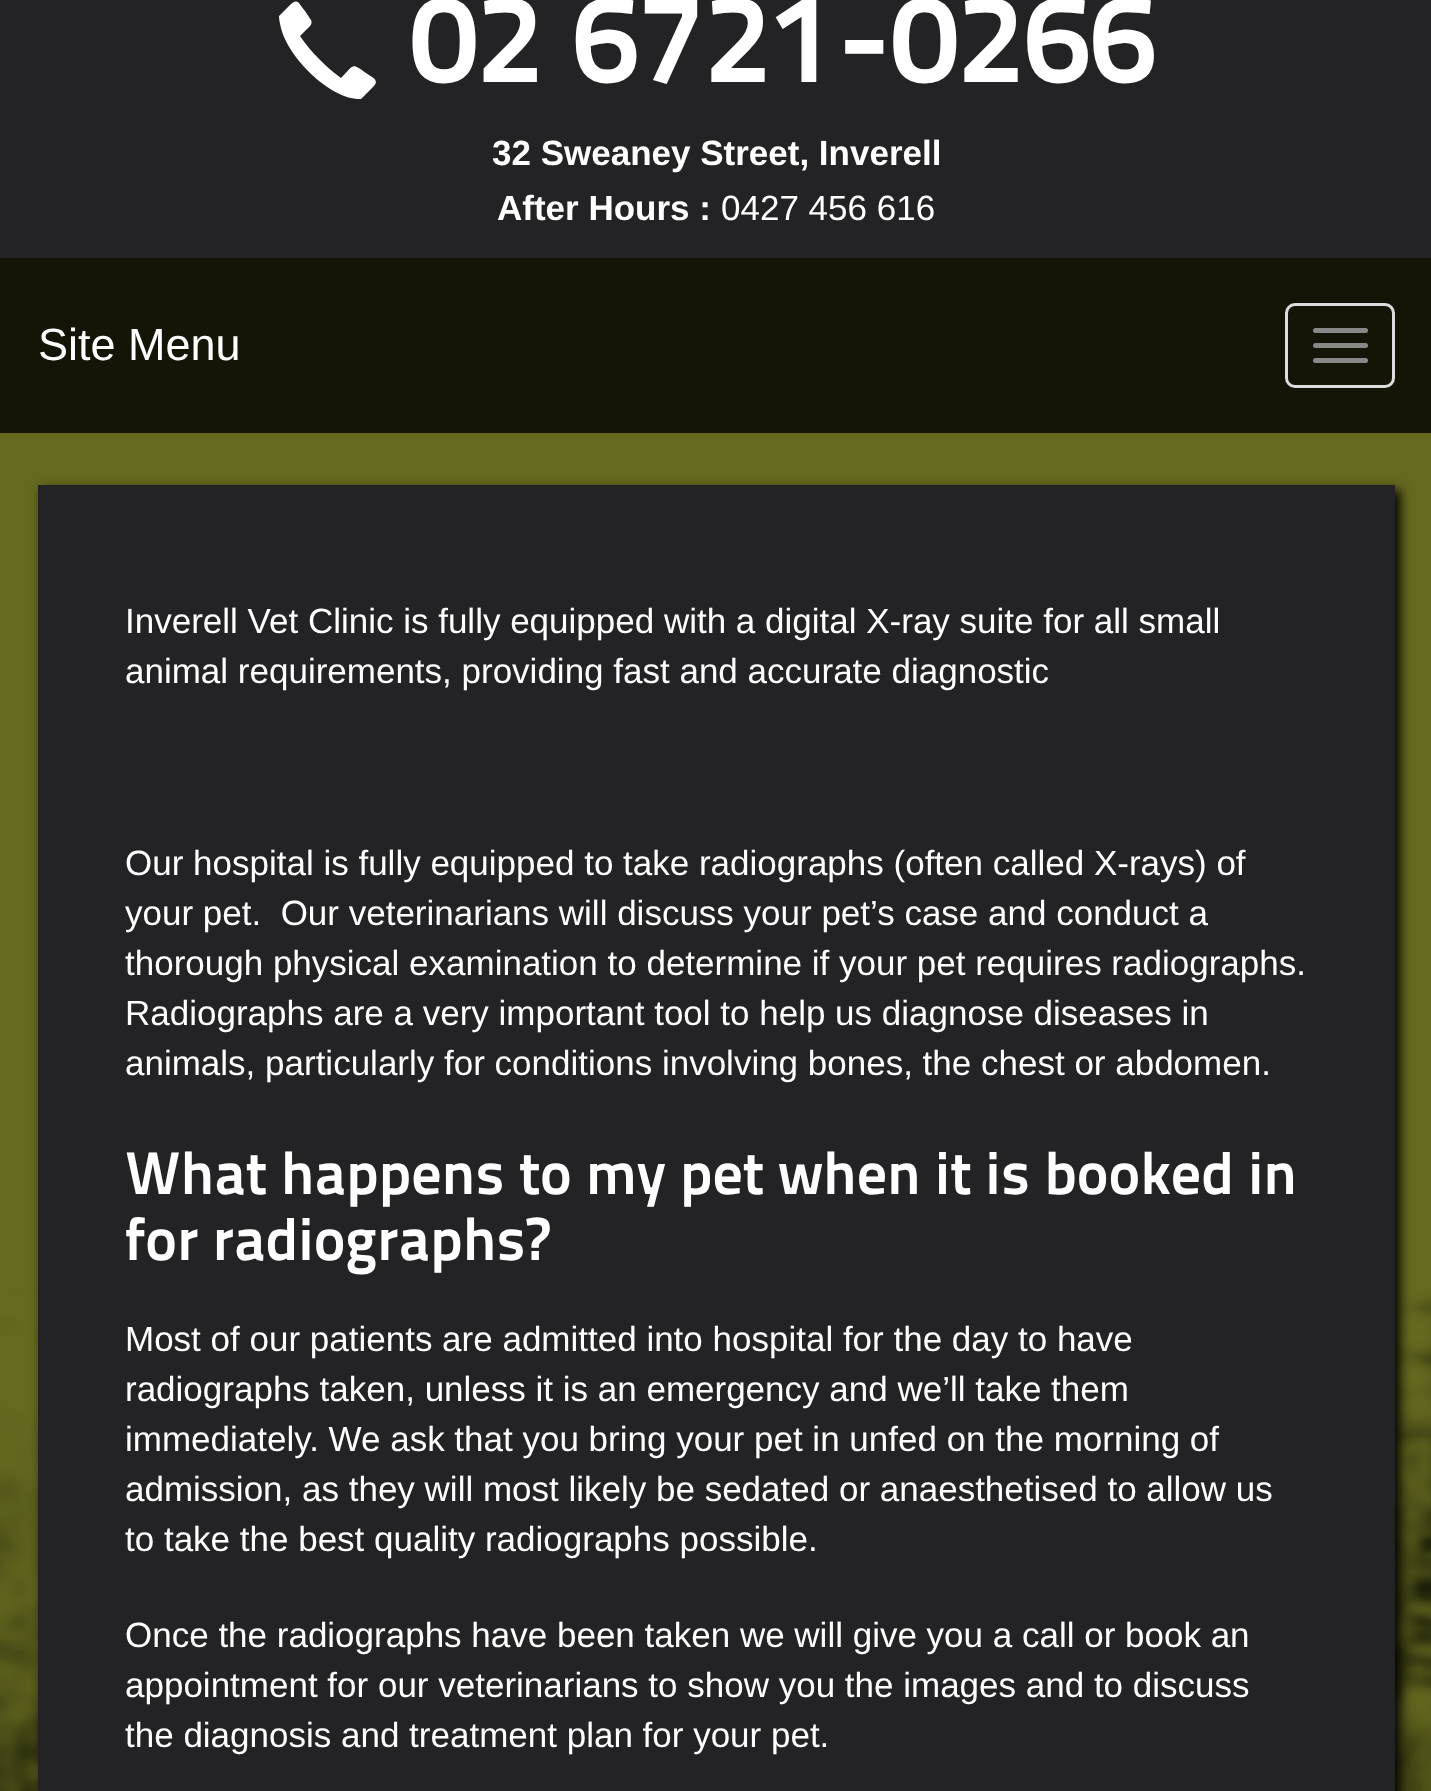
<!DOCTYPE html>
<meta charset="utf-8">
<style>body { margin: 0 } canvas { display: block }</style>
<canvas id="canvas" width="1431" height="1791"></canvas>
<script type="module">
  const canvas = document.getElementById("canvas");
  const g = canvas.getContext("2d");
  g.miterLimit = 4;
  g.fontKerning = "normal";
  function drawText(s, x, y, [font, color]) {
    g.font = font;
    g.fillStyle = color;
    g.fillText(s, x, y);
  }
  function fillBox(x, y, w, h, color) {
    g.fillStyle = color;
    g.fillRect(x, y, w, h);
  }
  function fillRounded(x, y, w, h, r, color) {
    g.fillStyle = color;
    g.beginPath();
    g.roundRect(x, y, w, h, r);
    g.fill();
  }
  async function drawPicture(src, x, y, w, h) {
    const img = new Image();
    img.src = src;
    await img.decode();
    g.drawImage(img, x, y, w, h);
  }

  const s1 = ["bold 125px 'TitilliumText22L'", "#FFFFFF"];
  const s2 = ["bold 35px Liberation Sans", "#FFFFFF"];
  const s3 = ["35px Liberation Sans", "#FFFFFF"];
  const s4 = ["45px Liberation Sans", "#FFFFFF"];
  const s5 = ["bold 60px 'TitilliumText22L'", "#FFFFFF"];

  fillBox(0, 0, 1431, 1791, "#65691F");
  await drawPicture("pic1.png", 0, 1291, 1431, 500);
  fillBox(0, 0, 1431, 258, "#232325");
  g.fillStyle = "#FFFFFF";
  g.beginPath();
  g.moveTo(279, 16);
  g.bezierCurveTo(279, 20, 280, 24, 281, 28);
  g.bezierCurveTo(288, 57, 330, 100, 361, 99);
  g.lineTo(373, 87);
  g.bezierCurveTo(380, 80, 373, 78, 366, 73);
  g.bezierCurveTo(351, 62, 354, 65, 341, 78);
  g.bezierCurveTo(325, 66, 311, 52, 300, 36);
  g.lineTo(306, 30);
  g.bezierCurveTo(309, 27, 313, 24, 311, 20);
  g.lineTo(305, 11);
  g.bezierCurveTo(299, 4, 298, -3, 290, 5);
  g.closePath();
  g.fill();
  drawText("02 6721-0266", 411, 82, s1);
  drawText("32 Sweaney Street, Inverell", 492, 165, s2);
  drawText("After Hours :", 497, 220, s2);
  drawText("0427 456 616", 721, 220, s3);
  fillBox(0, 258, 1431, 175, "#141506");
  drawText("Site Menu", 38, 360, s4);
  g.beginPath();
  g.roundRect(1286.5, 304.5, 107, 82, 8.5);
  g.strokeStyle = "#DDDDDD";
  g.lineWidth = 3;
  g.stroke();
  fillRounded(1313, 328, 55, 5, 2.5, "#888888");
  fillRounded(1313, 343, 55, 5, 2.5, "#888888");
  fillRounded(1313, 358, 55, 5, 2.5, "#888888");
  g.fillStyle = "#000000";
  g.filter = "blur(6px)";
  g.beginPath();
  g.rect(43, 490, 1357, 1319);
  g.fill();
  g.filter = "none";
  fillBox(38, 485, 1357, 1306, "#232325");
  drawText("Inverell Vet Clinic is fully equipped with a digital X-ray suite for all small", 125, 633, s3);
  drawText("animal requirements, providing fast and accurate diagnostic", 125, 683, s3);
  drawText("Our hospital is fully equipped to take radiographs (often called X-rays) of", 125, 875, s3);
  drawText("your pet.  Our veterinarians will discuss your pet’s case and conduct a", 125, 925, s3);
  drawText("thorough physical examination to determine if your pet requires radiographs.", 125, 975, s3);
  drawText("Radiographs are a very important tool to help us diagnose diseases in", 125, 1025, s3);
  drawText("animals, particularly for conditions involving bones, the chest or abdomen.", 125, 1075, s3);
  drawText("What happens to my pet when it is booked in", 125, 1194, s5);
  drawText("for radiographs?", 125, 1260, s5);
  drawText("Most of our patients are admitted into hospital for the day to have", 125, 1351, s3);
  drawText("radiographs taken, unless it is an emergency and we’ll take them", 125, 1401, s3);
  drawText("immediately. We ask that you bring your pet in unfed on the morning of", 125, 1451, s3);
  drawText("admission, as they will most likely be sedated or anaesthetised to allow us", 125, 1501, s3);
  drawText("to take the best quality radiographs possible.", 125, 1551, s3);
  drawText("Once the radiographs have been taken we will give you a call or book an", 125, 1647, s3);
  drawText("appointment for our veterinarians to show you the images and to discuss", 125, 1697, s3);
  drawText("the diagnosis and treatment plan for your pet.", 125, 1747, s3);
</script>
